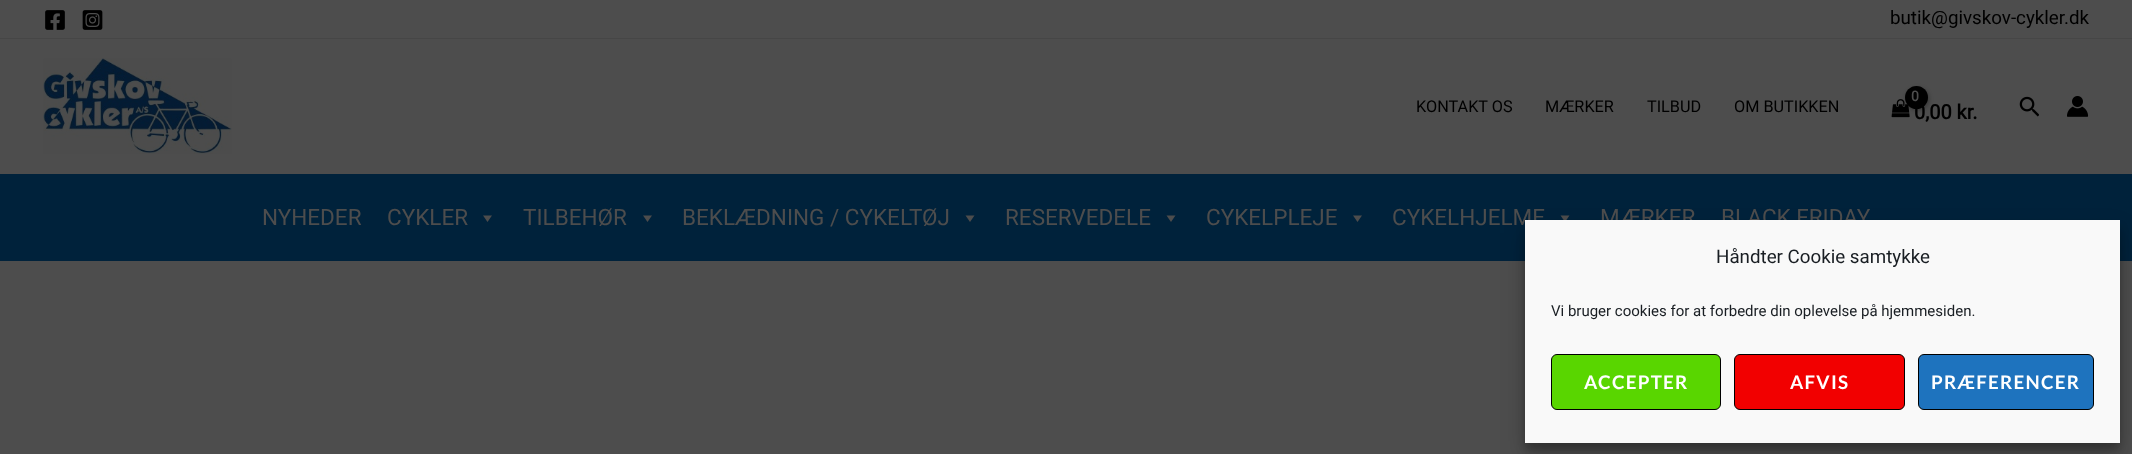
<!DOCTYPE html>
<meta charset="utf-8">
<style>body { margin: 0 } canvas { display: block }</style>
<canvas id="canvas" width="2132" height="454"></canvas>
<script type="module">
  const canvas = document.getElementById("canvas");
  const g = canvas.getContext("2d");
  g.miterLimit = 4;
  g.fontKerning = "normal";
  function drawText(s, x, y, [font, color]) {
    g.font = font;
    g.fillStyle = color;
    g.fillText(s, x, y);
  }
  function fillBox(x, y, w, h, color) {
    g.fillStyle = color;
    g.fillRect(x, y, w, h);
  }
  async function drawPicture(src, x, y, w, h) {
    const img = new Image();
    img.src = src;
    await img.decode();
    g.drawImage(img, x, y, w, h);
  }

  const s1 = ["18.75px Roboto", "#000000"];
  const s2 = ["16.25px Roboto", "#000000"];
  const s3 = ["bold 14px Roboto", "#4D4D4D"];
  const s4 = ["bold 20px Roboto", "#000000"];
  const s5 = ["22.5px Roboto", "#4D4D4D"];
  const s6 = ["18.75px Roboto", "#191E23"];
  const s7 = ["15px Roboto", "#191E23"];
  const s8 = ["bold 18.75px Lato", "#FFFFFF"];

  fillBox(0, 0, 2132, 454, "#4D4D4D");
  fillBox(0, 38, 2132, 1, "#464646");
  await drawPicture("pic1.png", 45, 10, 20, 20);
  await drawPicture("pic2.png", 82, 10, 21, 20);
  drawText("butik@givskov-cykler.dk", 1890, 24, s1);
  await drawPicture("pic3.png", 43, 58, 189, 96);
  drawText("KONTAKT OS", 1416, 112, s2);
  drawText("MÆRKER", 1545, 112, s2);
  drawText("TILBUD", 1647, 112, s2);
  drawText("OM BUTIKKEN", 1734, 112, s2);
  await drawPicture("pic4.png", 1891, 99, 19, 19);
  g.fillStyle = "rgba(0, 0, 0, 0.3)";
  g.filter = "blur(2px)";
  g.beginPath();
  g.roundRect(1906, 88, 23, 22, 11);
  g.fill();
  g.filter = "none";
  g.fillStyle = "#000000";
  g.beginPath();
  g.arc(1916.5, 97.5, 11.5, 0, Math.PI * 2);
  g.fill();
  g.letterSpacing = "-1px";
  drawText("0", 1911, 101, s3);
  g.letterSpacing = "0px";
  drawText("0,00 kr.", 1914, 119, s4);
  await drawPicture("pic5.png", 2019, 96, 20, 21);
  await drawPicture("pic6.png", 2067, 96, 22, 21);
  fillBox(0, 174, 2132, 87, "#00223B");
  drawText("NYHEDER", 262, 225, s5);
  drawText("CYKLER", 387, 225, s5);
  g.beginPath();
  g.moveTo(492, 215.5);
  g.lineTo(487.5, 222);
  g.lineTo(483, 215.5);
  g.closePath();
  g.fill();
  drawText("TILBEHØR", 523, 225, s5);
  g.beginPath();
  g.moveTo(652, 215.5);
  g.lineTo(647.5, 222);
  g.lineTo(643, 215.5);
  g.closePath();
  g.fill();
  drawText("BEKLÆDNING / CYKELTØJ", 682, 225, s5);
  g.beginPath();
  g.moveTo(974.5, 215.5);
  g.lineTo(970, 222);
  g.lineTo(965.5, 215.5);
  g.closePath();
  g.fill();
  drawText("RESERVEDELE", 1005, 225, s5);
  g.beginPath();
  g.moveTo(1175.5, 215.5);
  g.lineTo(1171, 222);
  g.lineTo(1166.5, 215.5);
  g.closePath();
  g.fill();
  drawText("CYKELPLEJE", 1206, 225, s5);
  g.beginPath();
  g.moveTo(1362, 215.5);
  g.lineTo(1357.5, 222);
  g.lineTo(1353, 215.5);
  g.closePath();
  g.fill();
  drawText("CYKELHJELME", 1392, 225, s5);
  g.beginPath();
  g.moveTo(1569.5, 215.5);
  g.lineTo(1565, 222);
  g.lineTo(1560.5, 215.5);
  g.closePath();
  g.fill();
  drawText("MÆRKER", 1600, 225, s5);
  drawText("BLACK FRIDAY", 1721, 225, s5);
  g.fillStyle = "rgba(0, 0, 0, 0.23)";
  g.filter = "blur(4px)";
  g.beginPath();
  g.rect(1525, 228, 595, 222);
  g.fill();
  g.filter = "none";
  g.fillStyle = "rgba(0, 0, 0, 0.19)";
  g.filter = "blur(12.5px)";
  g.beginPath();
  g.rect(1525, 233, 595, 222);
  g.fill();
  g.filter = "none";
  fillBox(1525, 220, 595, 223, "#F9F9F9");
  drawText("Håndter Cookie samtykke", 1716, 263, s6);
  drawText("Vi bruger cookies for at forbedre din oplevelse på hjemmesiden.", 1551, 316, s7);
  g.fillStyle = "#59D600";
  g.beginPath();
  g.roundRect(1551.5, 354.5, 169, 55, 5.5);
  g.fill();
  g.strokeStyle = "#000000";
  g.stroke();
  g.letterSpacing = "1.25px";
  drawText("ACCEPTER", 1584, 389, s8);
  g.fillStyle = "#F20000";
  g.beginPath();
  g.roundRect(1734.5, 354.5, 170, 55, 5.5);
  g.fill();
  g.stroke();
  drawText("AFVIS", 1790, 389, s8);
  g.fillStyle = "#1E73BE";
  g.beginPath();
  g.roundRect(1918.5, 354.5, 175, 55, 5.5);
  g.fill();
  g.stroke();
  drawText("PRÆFERENCER", 1931, 389, s8);
</script>
